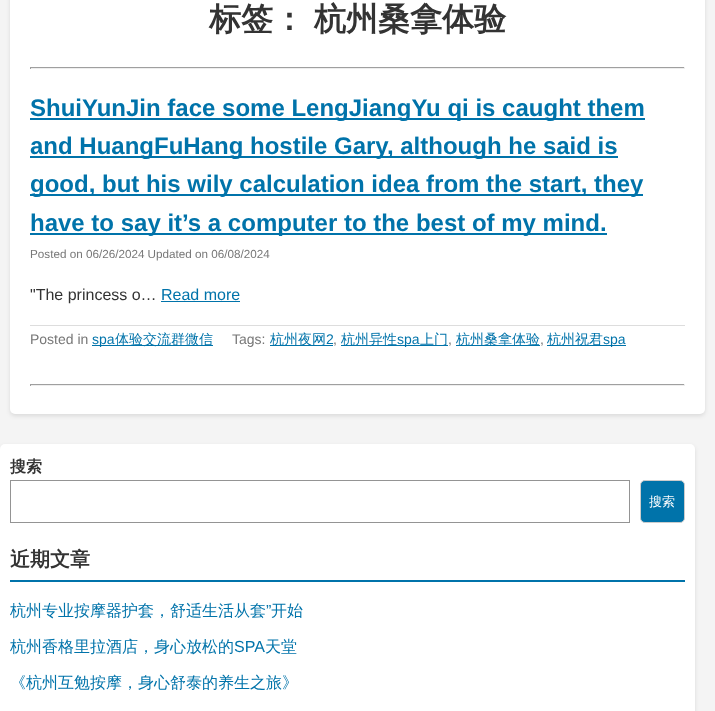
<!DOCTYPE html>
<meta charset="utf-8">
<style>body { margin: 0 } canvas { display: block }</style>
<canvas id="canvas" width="715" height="711"></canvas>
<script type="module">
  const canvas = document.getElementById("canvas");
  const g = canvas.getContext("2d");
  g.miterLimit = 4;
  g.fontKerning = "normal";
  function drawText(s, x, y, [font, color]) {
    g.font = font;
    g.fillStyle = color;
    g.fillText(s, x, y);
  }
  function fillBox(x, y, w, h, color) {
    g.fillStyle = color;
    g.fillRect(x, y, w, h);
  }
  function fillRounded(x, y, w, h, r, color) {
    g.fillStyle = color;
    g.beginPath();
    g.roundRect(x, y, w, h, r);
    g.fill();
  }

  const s1 = ["bold 32px WenQuanYi Zen Hei", "#333333"];
  const s2 = ["bold 24px Liberation Sans", "#0073AA"];
  const s3 = ["11.7px Liberation Sans", "#777777"];
  const s4 = ["16px Liberation Sans", "#333333"];
  const s5 = ["16px Liberation Sans", "#0073AA"];
  const s6 = ["14px Liberation Sans", "#777777"];
  const s7 = ["14px Liberation Sans", "#0073AA"];
  const s8 = ["500 14px WenQuanYi Zen Hei", "#0073AA"];
  const s9 = ["bold 16px WenQuanYi Zen Hei", "#333333"];
  const s10 = ["500 13px WenQuanYi Zen Hei", "#FFFFFF"];
  const s11 = ["bold 20px WenQuanYi Zen Hei", "#333333"];
  const s12 = ["500 16px WenQuanYi Zen Hei", "#0073AA"];

  fillBox(0, 0, 715, 711, "#F4F4F4");
  g.fillStyle = "rgba(0, 0, 0, 0.1)";
  g.filter = "blur(2px)";
  g.beginPath();
  g.roundRect(10, -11, 695, 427, 5);
  g.fill();
  g.filter = "none";
  fillRounded(10, -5, 695, 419, 5, "#FFFFFF");
  drawText("标签：", 209, 30, s1);
  drawText("杭州桑拿体验", 314, 30, s1);
  fillBox(30, 67, 655, 1, "#9F9F9F");
  fillBox(684, 67, 1, 2, "#EEEEEE");
  fillBox(30, 68, 655, 1, "#EEEEEE");
  fillBox(30, 67, 1, 2, "#9F9F9F");
  fillBox(30, 118, 615, 2, "#0073AA");
  drawText("ShuiYunJin face some LengJiangYu qi is caught them", 30, 116, s2);
  fillBox(30, 156, 588, 2, "#0073AA");
  drawText("and HuangFuHang hostile Gary, although he said is", 30, 154, s2);
  fillBox(30, 194, 613, 2, "#0073AA");
  drawText("good, but his wily calculation idea from the start, they", 30, 192, s2);
  fillBox(30, 233, 577, 2, "#0073AA");
  drawText("have to say it’s a computer to the best of my mind.", 30, 231, s2);
  drawText("Posted on 06/26/2024 Updated on 06/08/2024", 30, 258, s3);
  drawText("\"The princess o…", 30, 300, s4);
  drawText("Read more", 161, 300, s5);
  fillBox(161, 301, 79, 1, "#0073AA");
  fillBox(30, 325, 655, 1, "#DDDDDD");
  drawText("Posted in", 30, 344, s6);
  fillBox(92, 345, 121, 1, "#0073AA");
  drawText("spa", 92, 344, s7);
  drawText("体验交流群微信", 115, 344, s8);
  drawText("Tags:", 232, 344, s6);
  fillBox(270, 345, 63, 1, "#0073AA");
  drawText("杭州夜网", 270, 344, s8);
  drawText("2", 326, 344, s7);
  drawText(",", 333, 344, s6);
  fillBox(341, 345, 107, 1, "#0073AA");
  drawText("杭州异性", 341, 344, s8);
  drawText("spa", 397, 344, s7);
  drawText("上门", 420, 344, s8);
  drawText(",", 448, 344, s6);
  fillBox(456, 345, 84, 1, "#0073AA");
  drawText("杭州桑拿体验", 456, 344, s8);
  drawText(",", 540, 344, s6);
  fillBox(547, 345, 79, 1, "#0073AA");
  drawText("杭州祝君", 547, 344, s8);
  drawText("spa", 603, 344, s7);
  fillBox(30, 384, 655, 1, "#9F9F9F");
  fillBox(684, 384, 1, 2, "#EEEEEE");
  fillBox(30, 385, 655, 1, "#EEEEEE");
  fillBox(30, 384, 1, 2, "#9F9F9F");
  g.fillStyle = "rgba(0, 0, 0, 0.1)";
  g.filter = "blur(2px)";
  g.beginPath();
  g.roundRect(0, 446, 695, 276, 5);
  g.fill();
  g.filter = "none";
  fillRounded(0, 444, 695, 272, 5, "#FFFFFF");
  drawText("搜索", 10, 472, s9);
  g.strokeStyle = "#949494";
  g.strokeRect(10.5, 480.5, 619, 42);
  g.fillStyle = "#0073AA";
  g.beginPath();
  g.roundRect(640.5, 480.5, 44, 42, 4.5);
  g.fill();
  g.strokeStyle = "#CCCCCC";
  g.stroke();
  drawText("搜索", 649, 506, s10);
  fillBox(10, 580, 675, 2, "#0073AA");
  drawText("近期文章", 10, 566, s11);
  drawText("杭州专业按摩器护套，舒适生活从套", 10, 616, s12);
  drawText("”", 266, 616, s5);
  drawText("开始", 271, 616, s12);
  drawText("杭州香格里拉酒店，身心放松的", 10, 652, s12);
  drawText("SPA", 234, 652, s5);
  drawText("天堂", 265, 652, s12);
  drawText("《杭州互勉按摩，身心舒泰的养生之旅》", 10, 688, s12);
</script>
